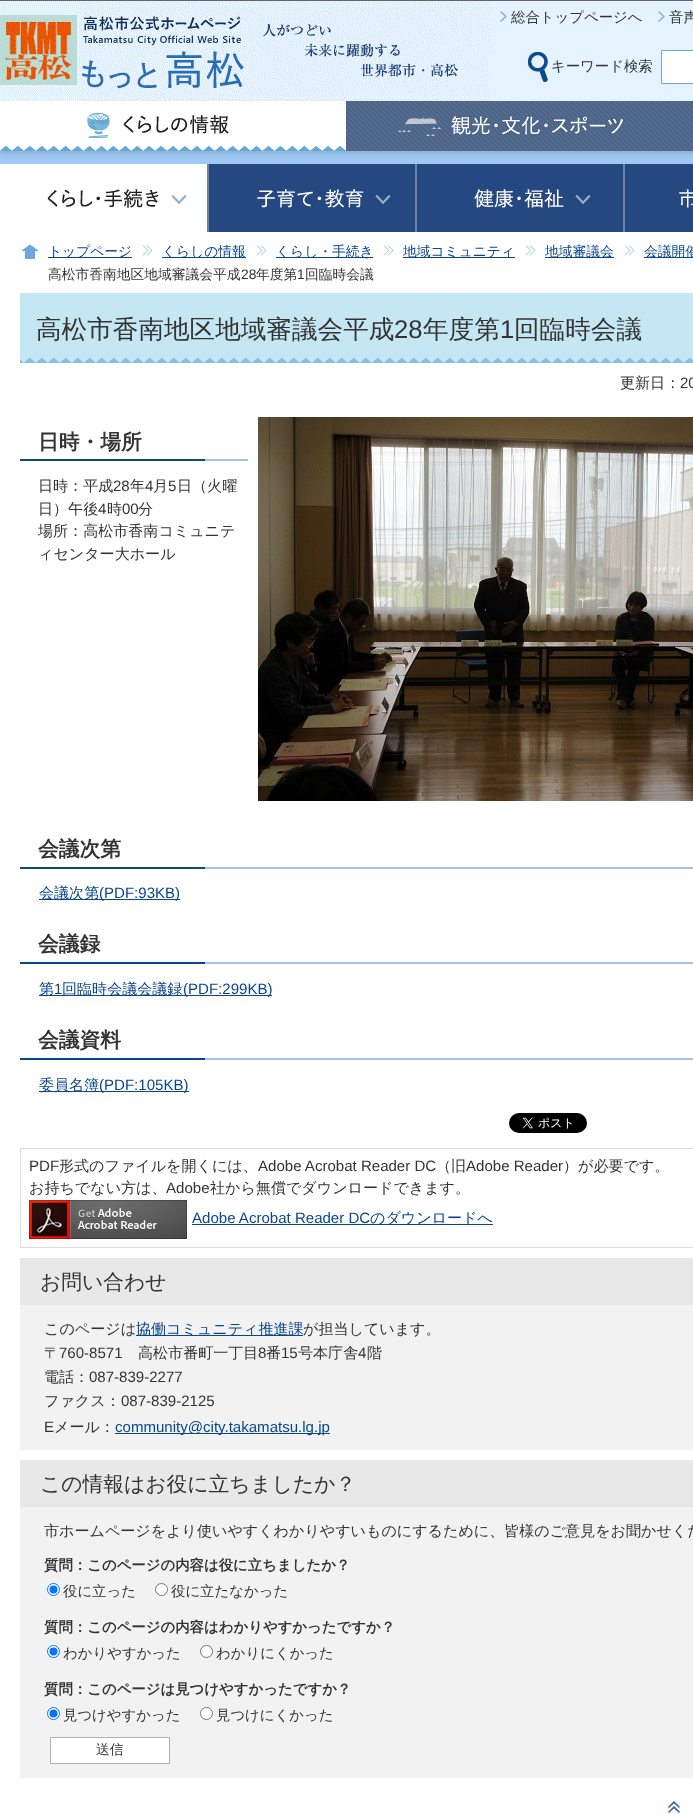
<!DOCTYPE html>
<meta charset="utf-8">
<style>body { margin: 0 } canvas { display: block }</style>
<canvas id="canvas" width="693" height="1815"></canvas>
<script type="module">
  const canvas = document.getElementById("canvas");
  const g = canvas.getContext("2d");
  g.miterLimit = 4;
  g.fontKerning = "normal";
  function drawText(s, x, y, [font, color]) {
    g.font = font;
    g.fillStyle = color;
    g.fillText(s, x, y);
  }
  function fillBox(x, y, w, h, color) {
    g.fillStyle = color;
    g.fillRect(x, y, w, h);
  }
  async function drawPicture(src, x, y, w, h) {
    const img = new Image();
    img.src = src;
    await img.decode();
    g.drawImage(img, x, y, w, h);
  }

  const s1 = ["500 14.4px WenQuanYi Zen Hei", "#333333"];
  const s2 = ["500 13.75px WenQuanYi Zen Hei", "#0A468C"];
  const s3 = ["500 13.75px WenQuanYi Zen Hei", "#333333"];
  const s4 = ["13.75px Liberation Sans", "#333333"];
  const s5 = ["500 25.6px WenQuanYi Zen Hei", "#333333"];
  const s6 = ["25.6px Liberation Sans", "#333333"];
  const s7 = ["500 15.05px WenQuanYi Zen Hei", "#333333"];
  const s8 = ["15.05px Liberation Sans", "#333333"];
  const s9 = ["bold 20.75px WenQuanYi Zen Hei", "#333333"];
  const s10 = ["500 15.05px WenQuanYi Zen Hei", "#0A468C"];
  const s11 = ["15.05px Liberation Sans", "#0A468C"];
  const s12 = ["500 20.75px WenQuanYi Zen Hei", "#333333"];
  const s13 = ["bold 14.4px WenQuanYi Zen Hei", "#333333"];

  fillBox(0, 0, 693, 1815, "#9FC9F4");
  g.fillStyle = "#8DB1D7";
  g.filter = "blur(2.5px)";
  g.beginPath();
  g.rect(-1, 1, 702, 153);
  g.fill();
  g.filter = "none";
  fillBox(0, 0, 693, 1, "#666666");
  fillBox(490, 1, 203, 100, "#E5F2FF");
  await drawPicture("pic1.png", 0, 1, 490, 100);
  await drawPicture("pic2.png", 500, 11, 7, 11);
  drawText("総合トップページへ", 511, 22, s1);
  await drawPicture("pic2.png", 658, 11, 7, 11);
  drawText("音声", 669, 22, s1);
  await drawPicture("pic3.png", 528, 52, 20, 30);
  drawText("キーワード検索", 551, 71, s1);
  g.fillStyle = "#FFFFFF";
  g.beginPath();
  g.rect(661.5, 50.5, 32, 33);
  g.fill();
  g.strokeStyle = "#74A6C8";
  g.stroke();
  await drawPicture("pic4.png", 346, 101, 347, 50);
  await drawPicture("pic5.png", 0, 101, 346, 50);
  await drawPicture("pic6.png", 398, 114, 227, 22);
  fillBox(0, 232, 693, 1583, "#FFFFFF");
  await drawPicture("pic7.png", 0, 164, 208, 68);
  await drawPicture("pic8.png", 208, 164, 208, 68);
  await drawPicture("pic9.png", 416, 164, 208, 68);
  await drawPicture("pic10.png", 624, 164, 69, 68);
  await drawPicture("pic11.png", 21, 244, 18, 15);
  await drawPicture("pic12.png", 142, 245, 11, 11);
  fillBox(48, 257, 84, 1, "#0A468C");
  drawText("トップページ", 48, 256, s2);
  await drawPicture("pic12.png", 256, 245, 11, 11);
  fillBox(162, 257, 84, 1, "#0A468C");
  drawText("くらしの情報", 162, 256, s2);
  await drawPicture("pic12.png", 383, 245, 11, 11);
  fillBox(276, 257, 97, 1, "#0A468C");
  drawText("くらし・手続き", 276, 256, s2);
  await drawPicture("pic12.png", 525, 245, 11, 11);
  fillBox(403, 257, 112, 1, "#0A468C");
  drawText("地域コミュニティ", 403, 256, s2);
  await drawPicture("pic12.png", 624, 245, 11, 11);
  fillBox(545, 257, 69, 1, "#0A468C");
  drawText("地域審議会", 545, 256, s2);
  fillBox(644, 257, 49, 1, "#0A468C");
  drawText("会議開催", 644, 256, s2);
  drawText("高松市香南地区地域審議会平成", 48, 279, s3);
  drawText("28", 241, 279, s4);
  drawText("年度第", 256, 279, s3);
  drawText("1", 297, 279, s4);
  drawText("回臨時会議", 305, 279, s3);
  fillBox(20, 293, 673, 65, "#C5E6F3");
  await drawPicture("pic13.png", 20, 358, 673, 5);
  drawText("高松市香南地区地域審議会平成", 36, 338, s5);
  drawText("28", 394, 338, s6);
  drawText("年度第", 423, 338, s5);
  drawText("1", 500, 338, s6);
  drawText("回臨時会議", 514, 338, s5);
  drawText("更新日：", 620, 388, s7);
  drawText("20", 680, 388, s8);
  await drawPicture("pic14.png", 20, 459, 228, 2);
  drawText("日時・場所", 38, 449, s9);
  await drawPicture("pic15.png", 258, 417, 435, 384);
  drawText("日時：平成", 38, 491, s7);
  drawText("28", 113, 491, s8);
  drawText("年", 130, 491, s7);
  drawText("4", 145, 491, s8);
  drawText("月", 153, 491, s7);
  drawText("5", 168, 491, s8);
  drawText("日（火曜", 177, 491, s7);
  drawText("日）午後", 38, 514, s7);
  drawText("4", 98, 514, s8);
  drawText("時", 107, 514, s7);
  drawText("00", 122, 514, s8);
  drawText("分", 138, 514, s7);
  drawText("場所：高松市香南コミュニテ", 38, 536, s7);
  drawText("ィセンター大ホール", 38, 559, s7);
  await drawPicture("pic16.png", 20, 867, 673, 2);
  drawText("会議次第", 38, 856, s9);
  fillBox(39, 899, 141, 1, "#0A468C");
  drawText("会議次第", 39, 898, s10);
  drawText("(PDF:93KB)", 99, 898, s11);
  await drawPicture("pic16.png", 20, 962, 673, 2);
  drawText("会議録", 38, 951, s9);
  fillBox(39, 995, 233, 1, "#0A468C");
  drawText("第", 39, 994, s10);
  drawText("1", 54, 994, s11);
  drawText("回臨時会議会議録", 62, 994, s10);
  drawText("(PDF:299KB)", 183, 994, s11);
  await drawPicture("pic16.png", 20, 1058, 673, 2);
  drawText("会議資料", 38, 1047, s9);
  fillBox(39, 1091, 150, 1, "#0A468C");
  drawText("委員名簿", 39, 1090, s10);
  drawText("(PDF:105KB)", 99, 1090, s11);
  await drawPicture("pic17.png", 509, 1113, 78, 20);
  g.strokeStyle = "#DDDDDD";
  g.strokeRect(20.5, 1148.5, 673, 99);
  drawText("PDF", 29, 1171, s8);
  drawText("形式のファイルを開くには、", 59, 1171, s7);
  drawText("Adobe Acrobat Reader DC", 258, 1171, s8);
  drawText("（旧", 436, 1171, s7);
  drawText("Adobe Reader", 466, 1171, s8);
  drawText("）が必要です。", 563, 1171, s7);
  drawText("お持ちでない方は、", 29, 1193, s7);
  drawText("Adobe", 166, 1193, s8);
  drawText("社から無償でダウンロードできます。", 210, 1193, s7);
  await drawPicture("pic18.png", 29, 1200, 158, 39);
  drawText("Adobe Acrobat Reader DC", 192, 1223, s11);
  fillBox(192, 1224, 301, 1, "#0A468C");
  drawText("のダウンロードへ", 370, 1223, s10);
  fillBox(20, 1305, 673, 145, "#F2F2F2");
  fillBox(20, 1258, 673, 47, "#E8E8E8");
  drawText("お問い合わせ", 40, 1289, s12);
  drawText("このページは", 44, 1334, s7);
  fillBox(136, 1335, 167, 1, "#0A468C");
  drawText("協働コミュニティ推進課", 136, 1334, s10);
  drawText("が担当しています。", 303, 1334, s7);
  drawText("〒", 44, 1358, s7);
  drawText("760-8571", 59, 1358, s8);
  drawText("高松市番町一丁目", 138, 1358, s7);
  drawText("8", 258, 1358, s8);
  drawText("番", 266, 1358, s7);
  drawText("15", 281, 1358, s8);
  drawText("号本庁舎", 298, 1358, s7);
  drawText("4", 358, 1358, s8);
  drawText("階", 367, 1358, s7);
  drawText("電話：", 44, 1382, s7);
  drawText("087-839-2277", 89, 1382, s8);
  drawText("ファクス：", 44, 1406, s7);
  drawText("087-839-2125", 121, 1406, s8);
  drawText("E", 44, 1432, s8);
  drawText("メール：", 54, 1432, s7);
  fillBox(115, 1433, 215, 1, "#0A468C");
  drawText("community@city.takamatsu.lg.jp", 115, 1432, s11);
  fillBox(20, 1507, 673, 271, "#F2F2F2");
  fillBox(20, 1460, 673, 47, "#E8E8E8");
  drawText("この情報はお役に立ちましたか？", 40, 1491, s12);
  drawText("市ホームページをより使いやすくわかりやすいものにするために、皆様のご意見をお聞かせくだ", 44, 1536, s7);
  drawText("質問：このページの内容は役に立ちましたか？", 44, 1570, s13);
  g.fillStyle = "#FFFFFF";
  g.beginPath();
  g.arc(53.5, 1589.5, 6, 0, Math.PI * 2);
  g.fill();
  g.strokeStyle = "#0075FF";
  g.stroke();
  g.fillStyle = "#0075FF";
  g.beginPath();
  g.arc(53.5, 1589.5, 4, 0, Math.PI * 2);
  g.fill();
  drawText("役に立った", 63, 1596, s1);
  g.fillStyle = "#FFFFFF";
  g.beginPath();
  g.arc(161.5, 1589.5, 6, 0, Math.PI * 2);
  g.fill();
  g.strokeStyle = "#767676";
  g.stroke();
  drawText("役に立たなかった", 171, 1596, s1);
  drawText("質問：このページの内容はわかりやすかったですか？", 44, 1632, s13);
  g.fillStyle = "#FFFFFF";
  g.beginPath();
  g.arc(53.5, 1651.5, 6, 0, Math.PI * 2);
  g.fill();
  g.strokeStyle = "#0075FF";
  g.stroke();
  g.fillStyle = "#0075FF";
  g.beginPath();
  g.arc(53.5, 1651.5, 4, 0, Math.PI * 2);
  g.fill();
  drawText("わかりやすかった", 63, 1658, s1);
  g.fillStyle = "#FFFFFF";
  g.beginPath();
  g.arc(206.5, 1651.5, 6, 0, Math.PI * 2);
  g.fill();
  g.strokeStyle = "#767676";
  g.stroke();
  drawText("わかりにくかった", 216, 1658, s1);
  drawText("質問：このページは見つけやすかったですか？", 44, 1694, s13);
  g.fillStyle = "#FFFFFF";
  g.beginPath();
  g.arc(53.5, 1713.5, 6, 0, Math.PI * 2);
  g.fill();
  g.strokeStyle = "#0075FF";
  g.stroke();
  g.fillStyle = "#0075FF";
  g.beginPath();
  g.arc(53.5, 1713.5, 4, 0, Math.PI * 2);
  g.fill();
  drawText("見つけやすかった", 63, 1720, s1);
  g.fillStyle = "#FFFFFF";
  g.beginPath();
  g.arc(206.5, 1713.5, 6, 0, Math.PI * 2);
  g.fill();
  g.strokeStyle = "#767676";
  g.stroke();
  drawText("見つけにくかった", 216, 1720, s1);
  g.fillStyle = "#FFFFFF";
  g.beginPath();
  g.rect(50.5, 1737.5, 119, 26);
  g.fill();
  g.strokeStyle = "#B0B0B0";
  g.stroke();
  drawText("送信", 96, 1754, s3);
  await drawPicture("pic19.png", 668, 1801, 12, 12);
</script>
